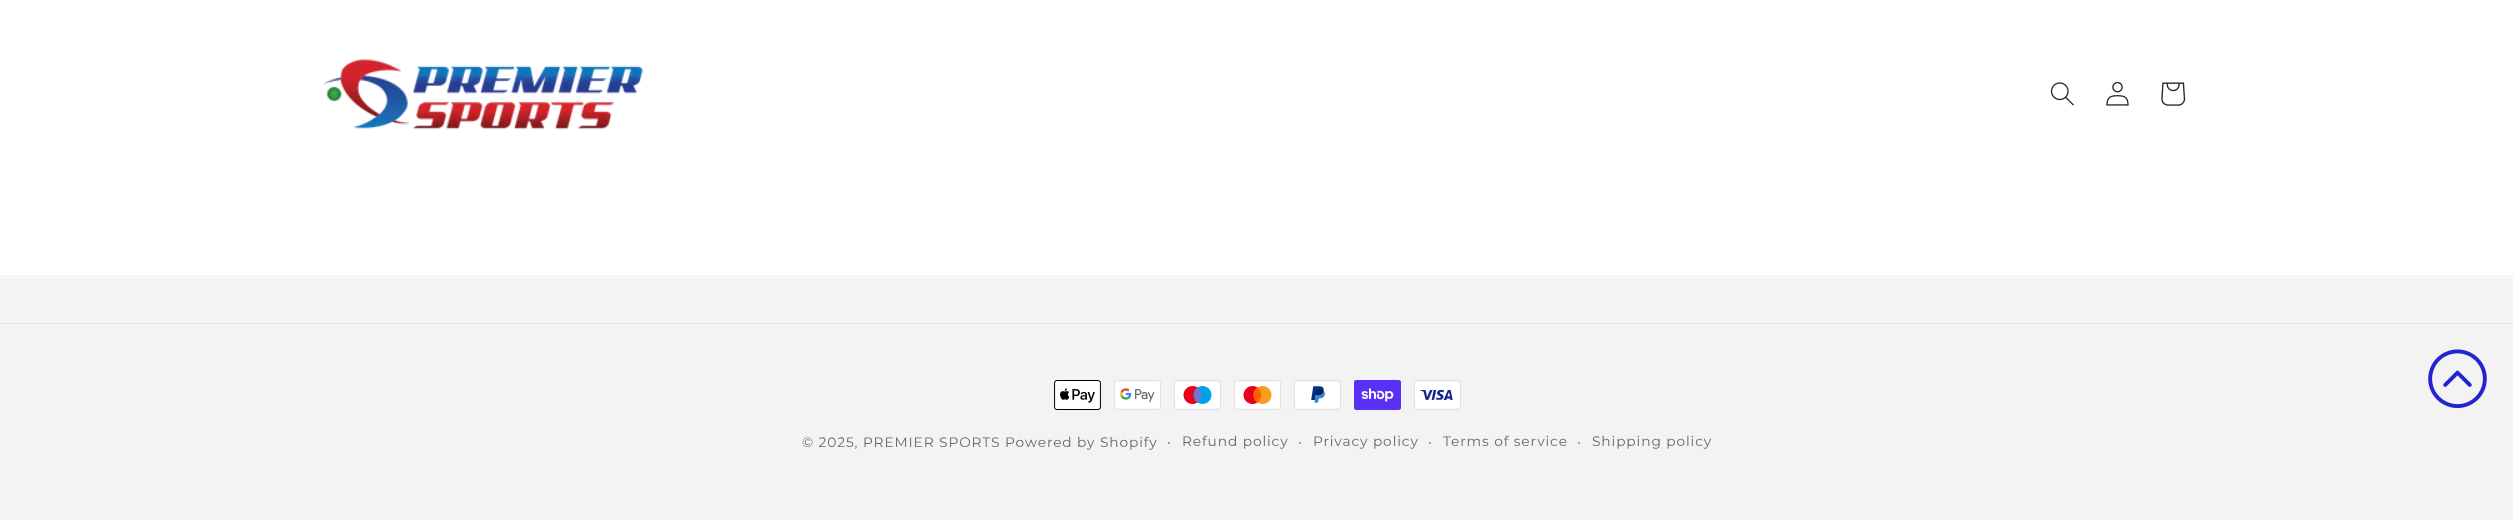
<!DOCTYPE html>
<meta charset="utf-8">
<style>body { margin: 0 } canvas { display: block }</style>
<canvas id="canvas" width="2513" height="520"></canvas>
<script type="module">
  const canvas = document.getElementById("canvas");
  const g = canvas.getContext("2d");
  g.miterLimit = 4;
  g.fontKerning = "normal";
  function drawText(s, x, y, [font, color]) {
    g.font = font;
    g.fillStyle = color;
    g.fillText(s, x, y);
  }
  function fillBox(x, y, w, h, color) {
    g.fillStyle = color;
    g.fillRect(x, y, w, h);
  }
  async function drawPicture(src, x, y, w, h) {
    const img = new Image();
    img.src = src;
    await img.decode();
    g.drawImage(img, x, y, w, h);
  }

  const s1 = ["100 13.75px Montserrat", "#686868"];
  const s2 = ["100 15px Montserrat", "#686868"];

  fillBox(0, 0, 2513, 520, "#F3F3F3");
  fillBox(0, 0, 2513, 278, "#FFFFFF");
  fillBox(0, 276, 2513, 1, "#EDEEEF");
  await drawPicture("pic1.png", 323, 59, 320, 71);
  await drawPicture("pic2.png", 2050, 82, 24, 24);
  await drawPicture("pic3.png", 2106, 81, 23, 25);
  await drawPicture("pic4.png", 2161, 82, 25, 24);
  await drawPicture("pic5.png", 2428, 349, 59, 60);
  fillBox(0, 323, 2513, 1, "#E4E4E4");
  await drawPicture("pic6.png", 1054, 380, 47, 30);
  await drawPicture("pic7.png", 1114, 380, 47, 30);
  await drawPicture("pic8.png", 1174, 380, 47, 30);
  await drawPicture("pic9.png", 1234, 380, 47, 30);
  await drawPicture("pic10.png", 1294, 380, 47, 30);
  await drawPicture("pic11.png", 1354, 380, 47, 30);
  await drawPicture("pic12.png", 1414, 380, 47, 30);
  g.letterSpacing = "0.9px";
  drawText("© 2025, PREMIER SPORTS", 802, 447, s1);
  drawText("Powered by Shopify", 1005, 447, s1);
  drawText("·", 1167, 447, s2);
  drawText("Refund policy", 1182, 446, s1);
  drawText("·", 1298, 447, s2);
  drawText("Privacy policy", 1313, 446, s1);
  drawText("·", 1428, 447, s2);
  drawText("Terms of service", 1443, 446, s1);
  drawText("·", 1577, 447, s2);
  drawText("Shipping policy", 1592, 446, s1);
</script>
